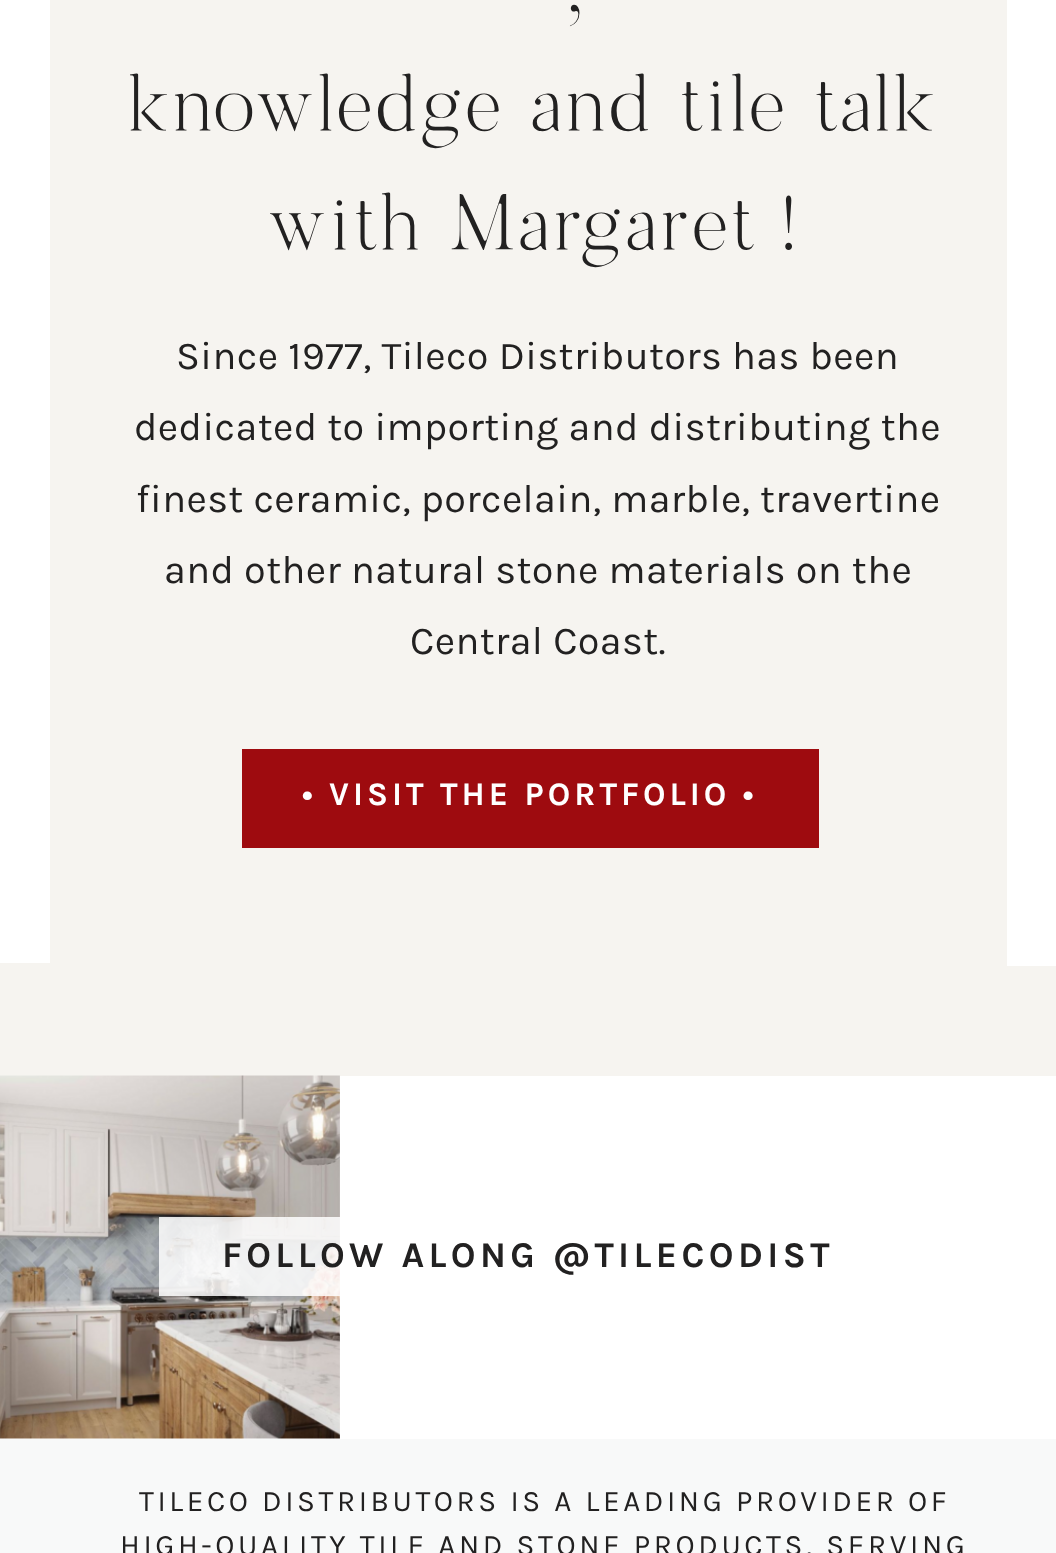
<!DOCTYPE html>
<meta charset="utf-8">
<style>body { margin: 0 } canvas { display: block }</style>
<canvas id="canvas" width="1056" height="1553"></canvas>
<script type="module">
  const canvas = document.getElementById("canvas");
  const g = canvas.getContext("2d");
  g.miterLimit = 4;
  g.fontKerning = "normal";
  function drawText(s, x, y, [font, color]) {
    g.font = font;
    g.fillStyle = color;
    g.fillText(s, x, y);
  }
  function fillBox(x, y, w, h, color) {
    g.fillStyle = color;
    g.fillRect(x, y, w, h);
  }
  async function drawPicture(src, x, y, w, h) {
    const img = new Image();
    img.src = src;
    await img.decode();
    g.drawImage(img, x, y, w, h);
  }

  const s1 = ["79.25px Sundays", "#222121"];
  const s2 = ["39.6px Karla", "#222121"];
  const s3 = ["bold 33px Karla", "#FFFFFF"];
  const s4 = ["bold 36.25px Karla", "#222121"];
  const s5 = ["29.7px Karla", "#222121"];

  fillBox(0, 0, 1056, 1553, "#FFFFFF");
  fillBox(0, 0, 1056, 1076, "#F6F4F0");
  fillBox(0, 0, 50, 963, "#FFFFFF");
  drawText(",", 566, 13, s1);
  drawText("knowledge and tile talk", 126, 131, s1);
  drawText("with Margaret !", 266, 250, s1);
  fillBox(1007, 0, 49, 966, "#FFFFFF");
  g.letterSpacing = "0.4px";
  drawText("Since 1977, Tileco Distributors has been", 176, 369, s2);
  drawText("dedicated to importing and distributing the", 134, 440, s2);
  drawText("finest ceramic, porcelain, marble, travertine", 136, 512, s2);
  drawText("and other natural stone materials on the", 164, 583, s2);
  drawText("Central Coast.", 410, 654, s2);
  fillBox(242, 749, 577, 99, "#9E0B0F");
  g.letterSpacing = "4px";
  drawText("• VISIT THE PORTFOLIO •", 302, 805, s3);
  await drawPicture("pic1.png", 0, 1075, 340, 364);
  fillBox(159, 1217, 181, 79, "rgba(255, 255, 255, 0.85)");
  g.letterSpacing = "4.4px";
  drawText("FOLLOW ALONG @TILECODIST", 222, 1267, s4);
  fillBox(0, 1439, 1056, 114, "#F8F9F9");
  g.letterSpacing = "3.55px";
  drawText("TILECO DISTRIBUTORS IS A LEADING PROVIDER OF", 139, 1511, s5);
  drawText("HIGH-QUALITY TILE AND STONE PRODUCTS, SERVING", 120, 1555, s5);
</script>
